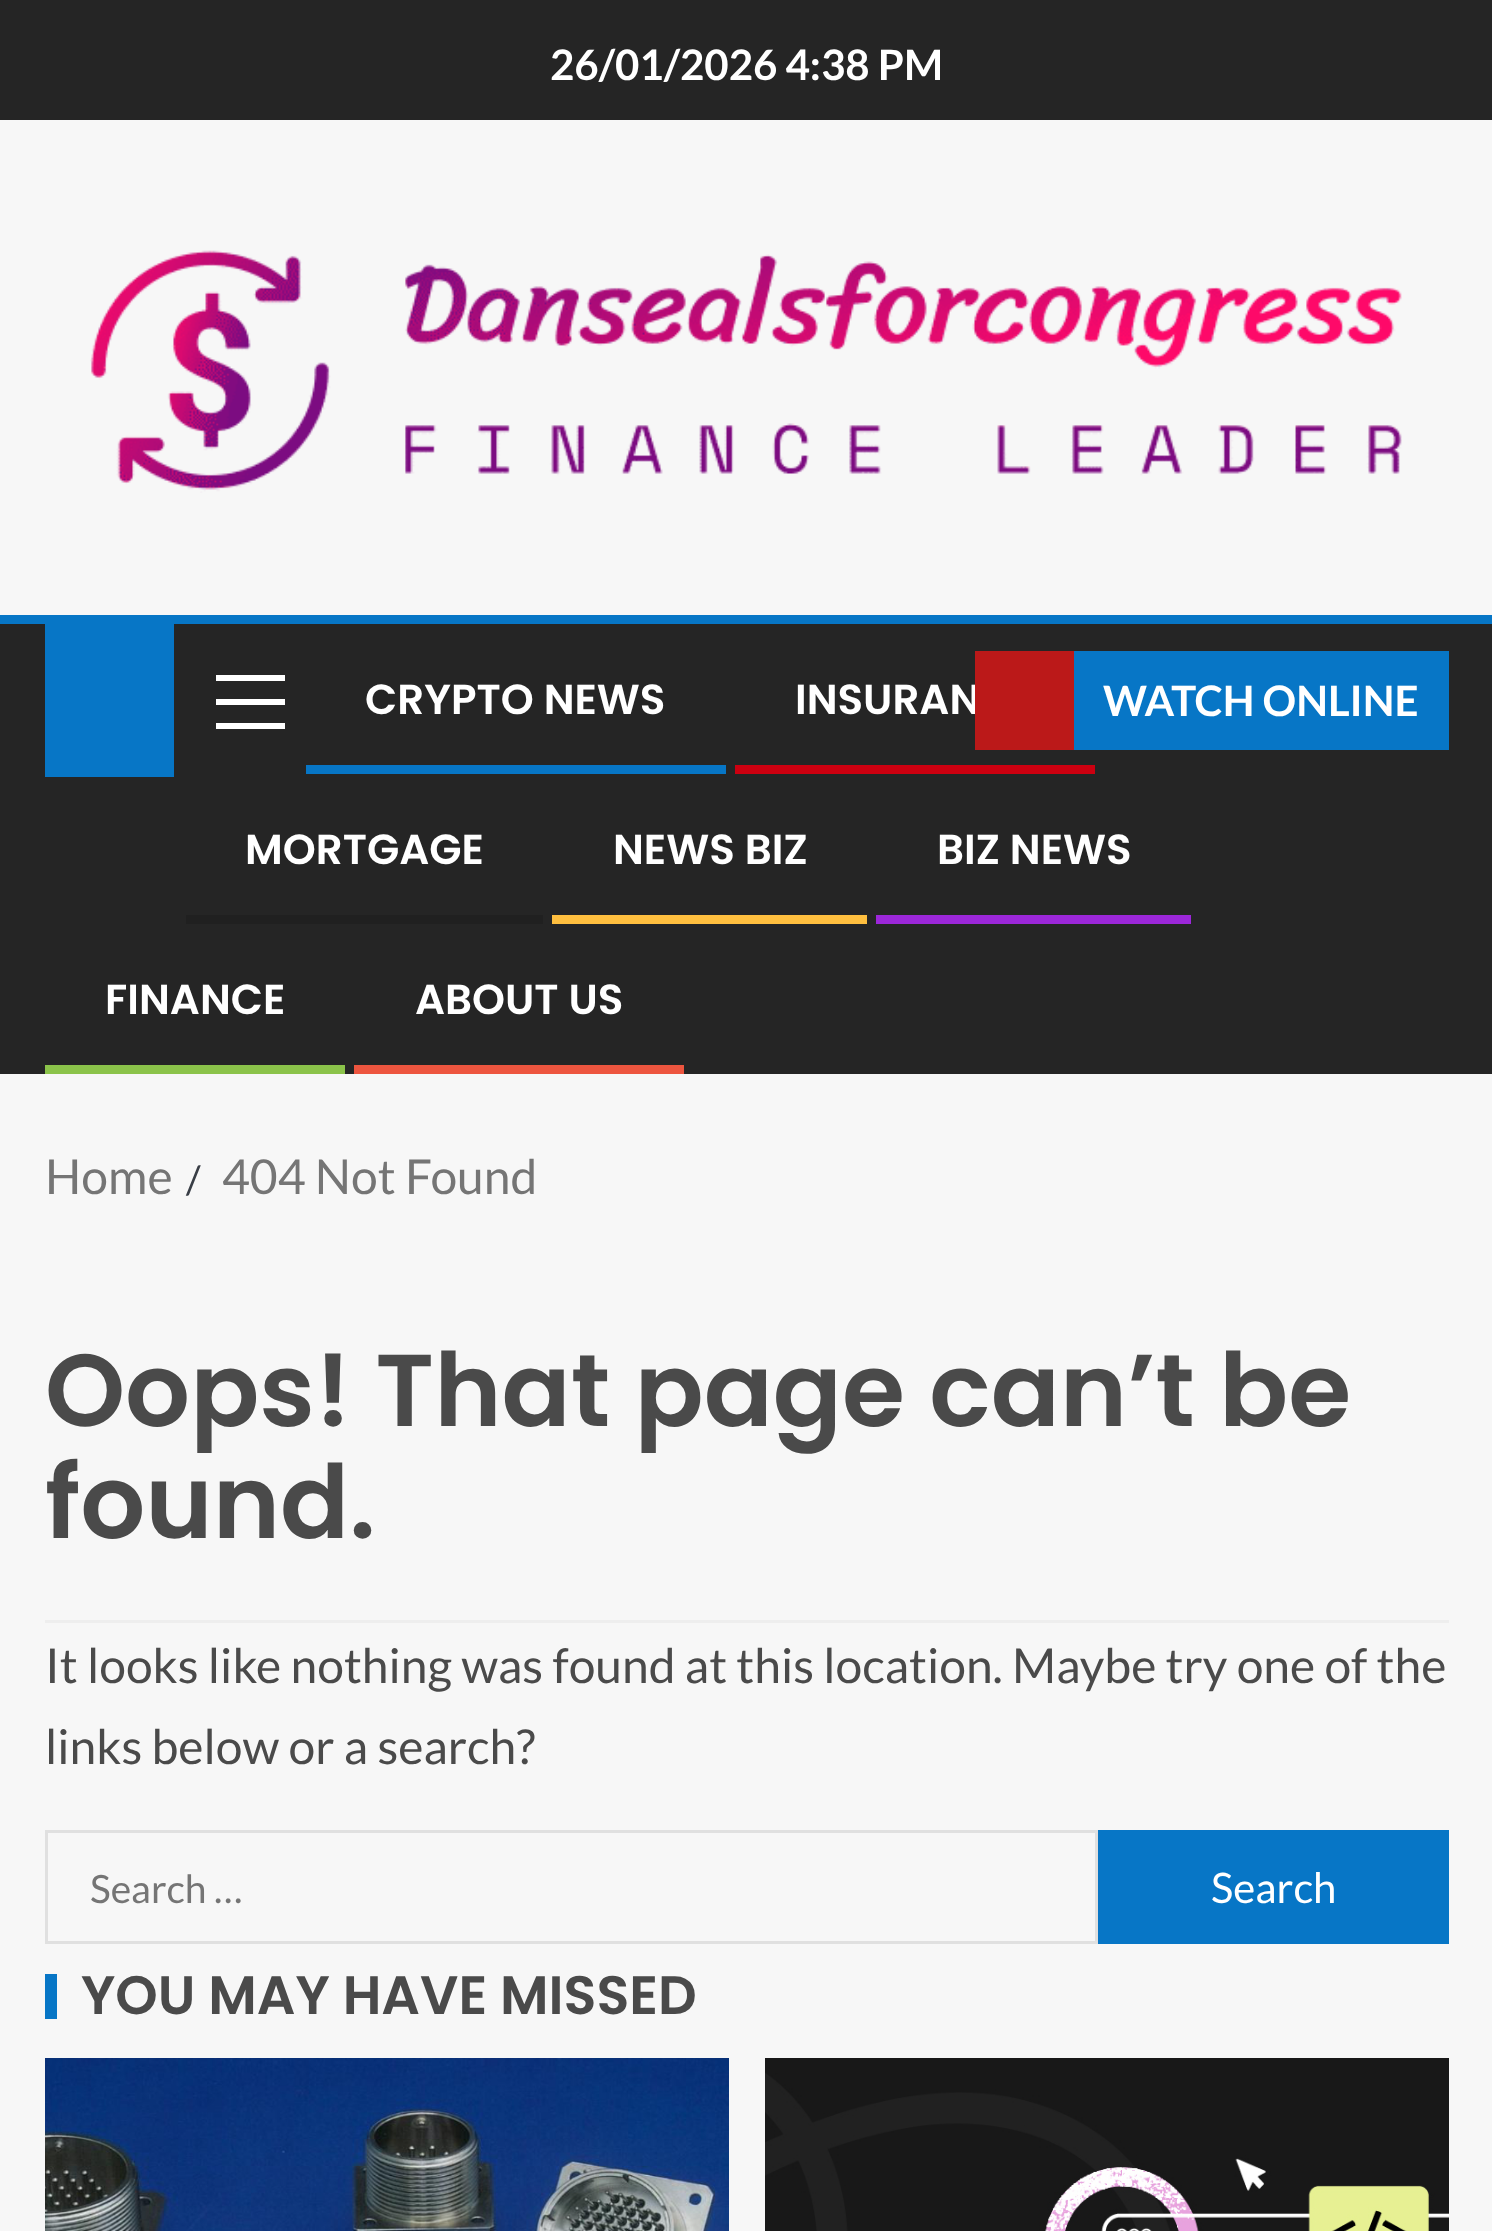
<!DOCTYPE html>
<meta charset="utf-8">
<style>body { margin: 0 } canvas { display: block }</style>
<canvas id="canvas" width="1492" height="2231"></canvas>
<script type="module">
  const canvas = document.getElementById("canvas");
  const g = canvas.getContext("2d");
  g.miterLimit = 4;
  g.fontKerning = "normal";
  function drawText(s, x, y, [font, color]) {
    g.font = font;
    g.fillStyle = color;
    g.fillText(s, x, y);
  }
  function fillBox(x, y, w, h, color) {
    g.fillStyle = color;
    g.fillRect(x, y, w, h);
  }
  async function drawPicture(src, x, y, w, h) {
    const img = new Image();
    img.src = src;
    await img.decode();
    g.drawImage(img, x, y, w, h);
  }

  const s1 = ["bold 42px Lato", "#FFFFFF"];
  const s2 = ["600 42px Poppins", "#FFFFFF"];
  const s3 = ["48px Lato", "#757575"];
  const s4 = ["39px Lato", "#393E46"];
  const s5 = ["600 102px Poppins", "#4A4A4A"];
  const s6 = ["48px Lato", "#4A4A4A"];
  const s7 = ["39px Lato", "#757575"];
  const s8 = ["42px Lato", "#FFFFFF"];
  const s9 = ["600 54px Poppins", "#4A4A4A"];

  fillBox(0, 0, 1492, 2231, "#F7F7F7");
  fillBox(0, 0, 1492, 120, "#252525");
  drawText("26/01/2026 4:38 PM", 550, 80, s1);
  await drawPicture("pic1.png", 90, 250, 1312, 243);
  fillBox(0, 624, 1492, 450, "#252525");
  fillBox(0, 615, 1492, 9, "#0776C6");
  fillBox(45, 624, 129, 153, "#0776C6");
  fillBox(216, 699, 69, 6, "#FFFFFF");
  fillBox(216, 675, 69, 6, "#FFFFFF");
  fillBox(216, 723, 69, 6, "#FFFFFF");
  drawText("CRYPTO NEWS", 365, 714, s2);
  fillBox(306, 765, 420, 9, "#0776C6");
  drawText("INSURAN", 795, 714, s2);
  fillBox(735, 765, 360, 9, "#CC0010");
  drawText("MORTGAGE", 245, 864, s2);
  fillBox(186, 915, 357, 9, "#202020");
  drawText("NEWS BIZ", 613, 864, s2);
  fillBox(552, 915, 315, 9, "#FFBF3F");
  drawText("BIZ NEWS", 937, 864, s2);
  fillBox(876, 915, 315, 9, "#9C27D9");
  drawText("FINANCE", 105, 1014, s2);
  fillBox(45, 1065, 300, 9, "#8BC34A");
  drawText("ABOUT US", 415, 1014, s2);
  fillBox(354, 1065, 330, 9, "#ED553F");
  fillBox(975, 651, 99, 99, "#BB1919");
  fillBox(1074, 651, 375, 99, "#0776C6");
  drawText("WATCH ONLINE", 1103, 716, s1);
  drawText("Home", 45, 1194, s3);
  drawText("/", 186, 1194, s4);
  drawText("404 Not Found", 222, 1194, s3);
  fillBox(45, 1620, 1404, 3, "#EEEEEE");
  drawText("Oops! That page can’t be", 45, 1426, s5);
  drawText("found.", 45, 1538, s5);
  drawText("It looks like nothing was found at this location. Maybe try one of the", 45, 1683, s6);
  drawText("links below or a search?", 45, 1764, s6);
  g.strokeStyle = "#E0E0E0";
  g.lineWidth = 3;
  g.strokeRect(46.5, 1831.5, 1050, 111);
  drawText("Search …", 90, 1903, s7);
  fillBox(1098, 1830, 351, 114, "#0776C6");
  drawText("Search", 1211, 1903, s8);
  fillBox(45, 1974, 12, 45, "#0776C6");
  drawText("YOU MAY HAVE MISSED", 81, 2014, s9);
  await drawPicture("pic2.png", 45, 2058, 684, 173);
  await drawPicture("pic3.png", 765, 2058, 684, 173);
</script>
